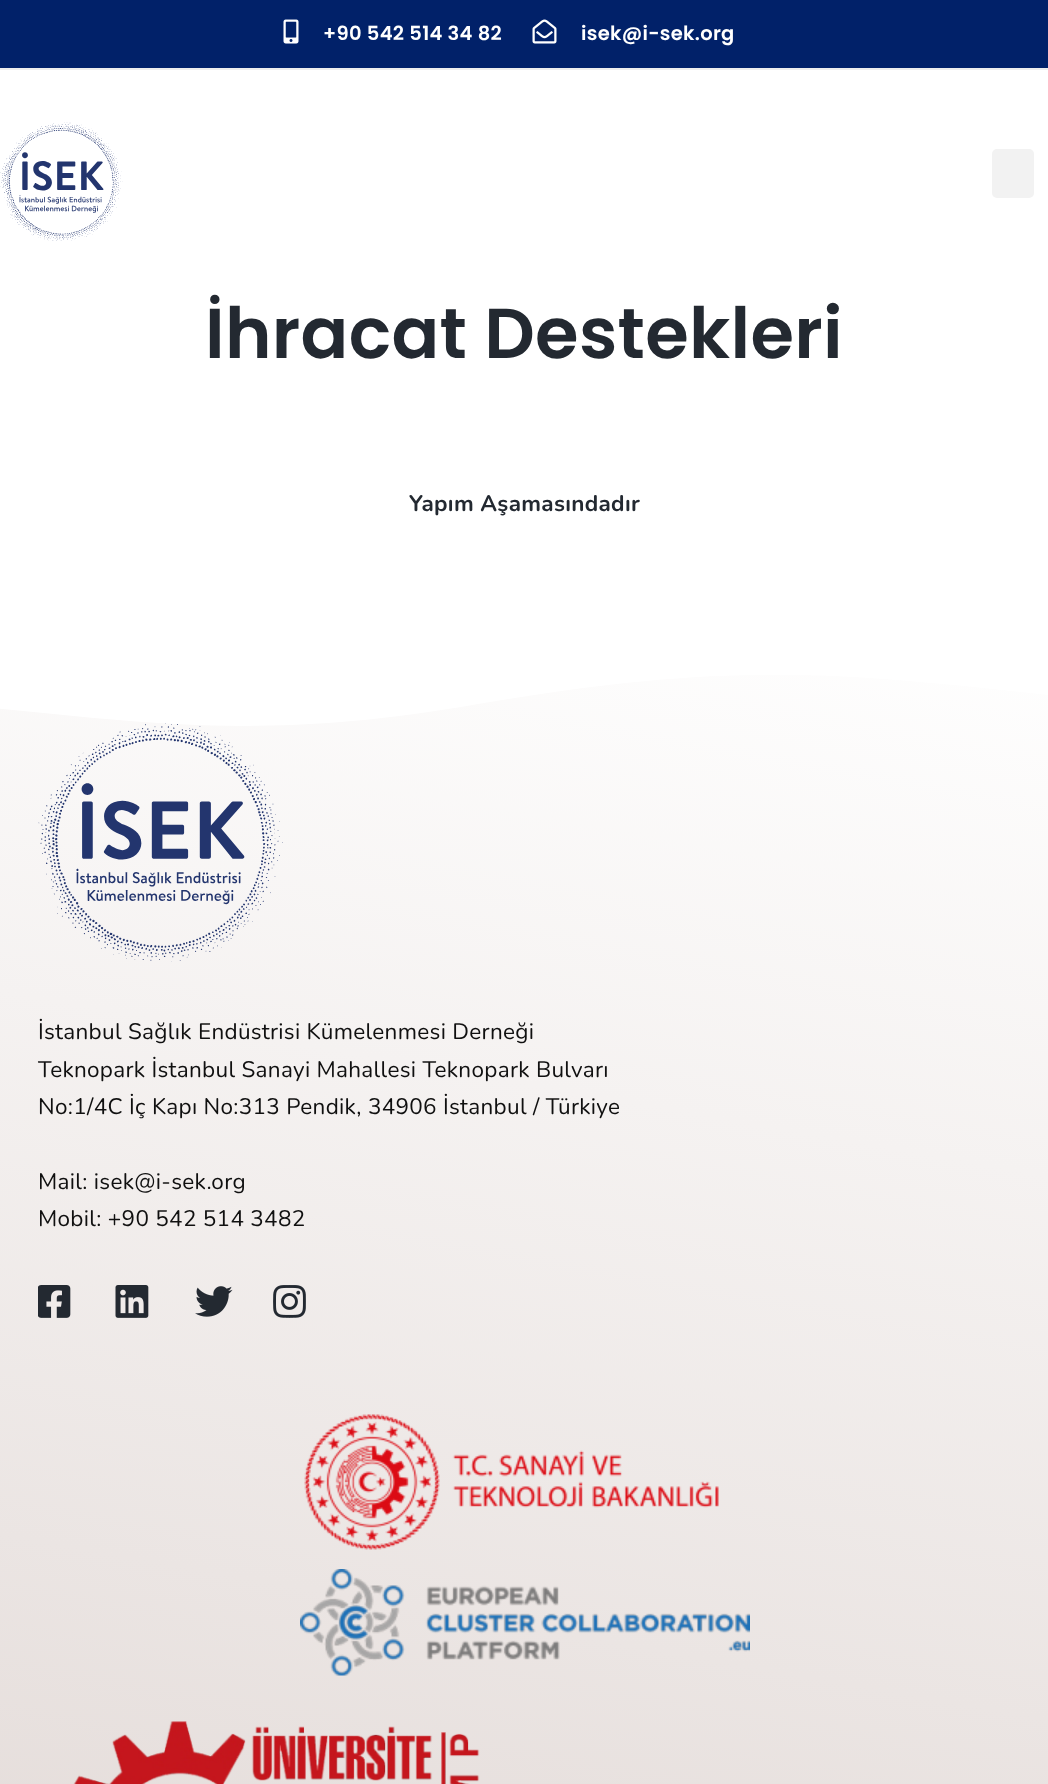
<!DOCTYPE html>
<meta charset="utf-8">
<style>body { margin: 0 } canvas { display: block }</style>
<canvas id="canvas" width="1048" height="1784"></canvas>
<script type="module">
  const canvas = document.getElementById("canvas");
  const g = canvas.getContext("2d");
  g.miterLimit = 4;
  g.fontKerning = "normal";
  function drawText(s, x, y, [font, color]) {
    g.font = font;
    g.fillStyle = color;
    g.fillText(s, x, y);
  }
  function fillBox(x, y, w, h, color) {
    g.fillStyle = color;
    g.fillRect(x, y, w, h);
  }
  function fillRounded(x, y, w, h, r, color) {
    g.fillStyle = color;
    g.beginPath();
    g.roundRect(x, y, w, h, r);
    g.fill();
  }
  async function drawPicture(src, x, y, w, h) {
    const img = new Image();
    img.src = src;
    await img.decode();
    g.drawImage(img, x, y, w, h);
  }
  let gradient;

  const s1 = ["600 19.5px Poppins", "#FFFFFF"];
  const s2 = ["600 70.5px Poppins", "#232931"];
  const s3 = ["bold 22.5px Nunito", "#232931"];
  const s4 = ["22.5px Nunito", "#101010"];

  fillBox(0, 0, 1048, 1784, "#FFFFFF");
  fillBox(0, 0, 1048, 68, "#012169");
  fillBox(0, 68, 1048, 2, "#EEEEEE");
  await drawPicture("pic1.png", 283, 19, 16, 25);
  g.letterSpacing = "0.3px";
  drawText("+90 542 514 34 82", 323, 40, s1);
  await drawPicture("pic2.png", 532, 19, 25, 25);
  drawText("isek@i-sek.org", 581, 40, s1);
  await drawPicture("pic3.png", 0, 122, 123, 119);
  fillRounded(992, 149, 42, 49, 5, "#F2F2F2");
  drawText("İhracat Destekleri", 205, 358, s2);
  drawText("Yapım Aşamasındadır", 409, 511, s3);
  gradient = g.createLinearGradient(664, 564, 385, 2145);
  gradient.addColorStop(0, "#FFFFFF");
  gradient.addColorStop(1, "#E1D8D5");
  g.fillStyle = gradient;
  g.fillRect(0, 674, 1048, 1110);
  g.save();
  g.beginPath();
  g.rect(0, 630, 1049, 98);
  g.clip();
  g.fillStyle = "#FFFFFF";
  g.beginPath();
  g.moveTo(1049, 695);
  g.bezierCurveTo(836, 672, 730, 661, 478, 704);
  g.bezierCurveTo(259, 743, 134, 721, -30, 706);
  g.bezierCurveTo(-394, 680, -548, 655, -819, 695);
  g.lineTo(-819, 600);
  g.lineTo(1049, 600);
  g.closePath();
  g.fill();
  g.restore();
  await drawPicture("pic4.png", 38, 723, 245, 239);
  drawText("İstanbul Sağlık Endüstrisi Kümelenmesi Derneği", 38, 1039, s4);
  drawText("Teknopark İstanbul Sanayi Mahallesi Teknopark Bulvarı", 38, 1077, s4);
  drawText("No:1/4C İç Kapı No:313 Pendik, 34906 İstanbul / Türkiye", 38, 1114, s4);
  drawText("Mail: isek@i-sek.org", 38, 1189, s4);
  drawText("Mobil: +90 542 514 3482", 38, 1226, s4);
  await drawPicture("pic5.png", 38, 1285, 33, 33);
  await drawPicture("pic6.png", 115, 1285, 34, 33);
  await drawPicture("pic7.png", 195, 1286, 38, 31);
  await drawPicture("pic8.png", 273, 1285, 33, 33);
  await drawPicture("pic9.png", 304, 1414, 415, 136);
  await drawPicture("pic10.png", 300, 1569, 450, 107);
  await drawPicture("pic11.png", 73, 1721, 407, 63);
</script>
